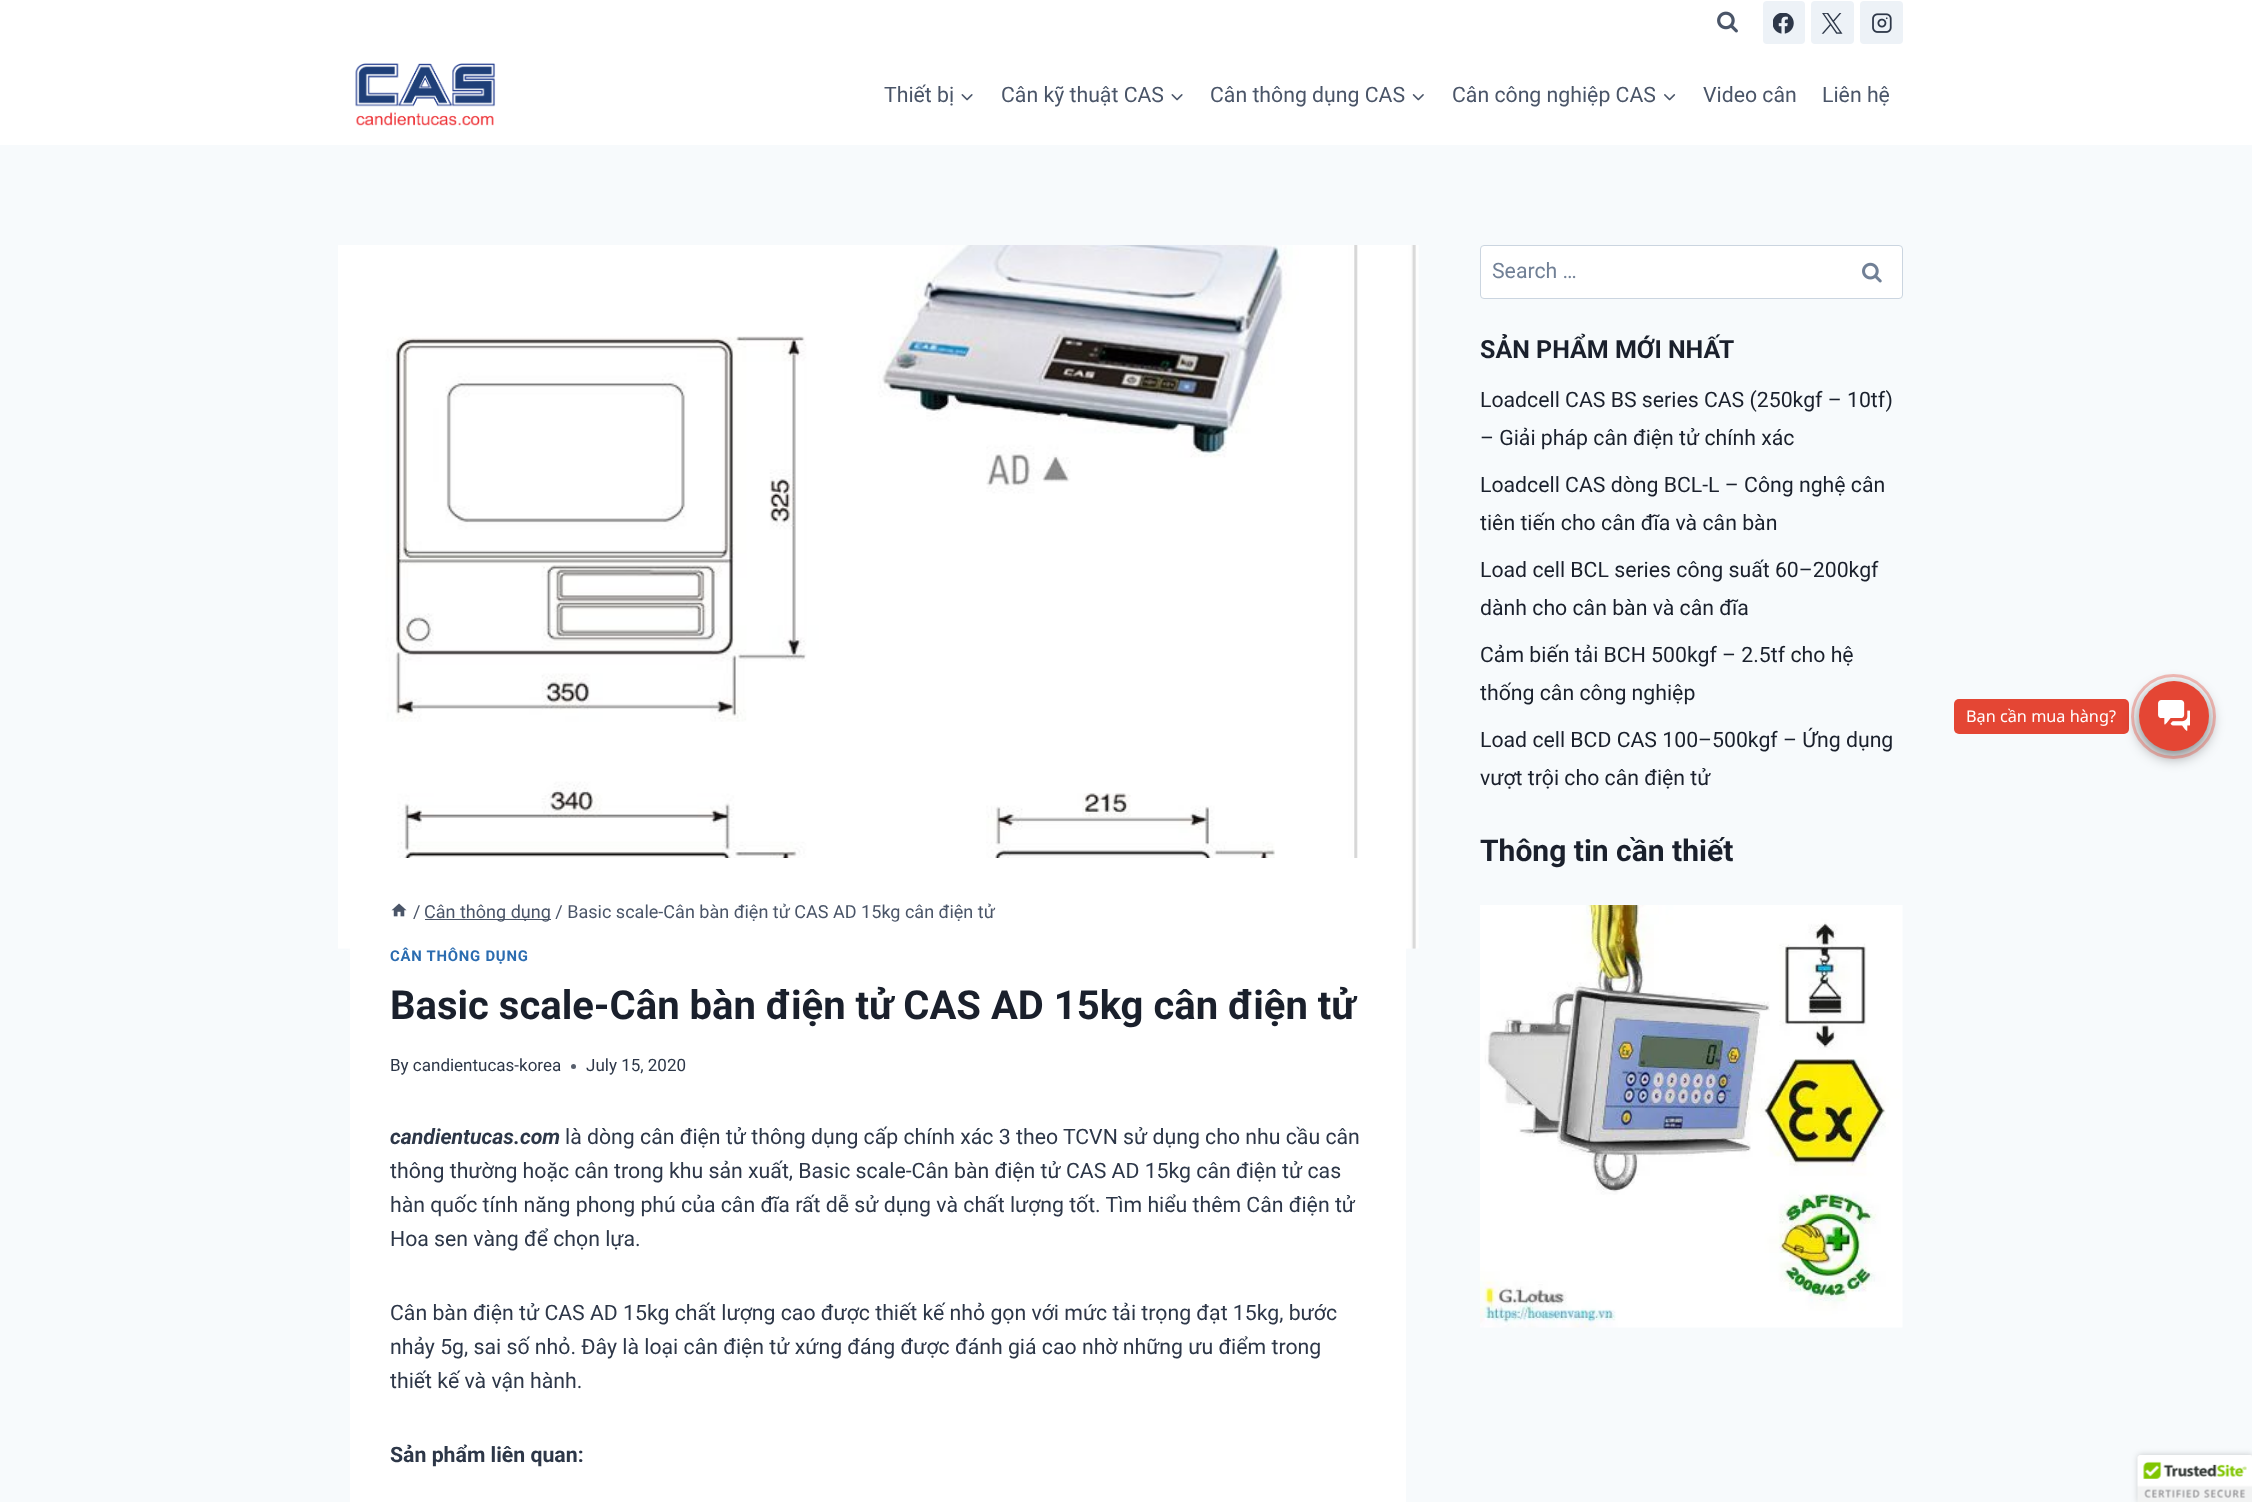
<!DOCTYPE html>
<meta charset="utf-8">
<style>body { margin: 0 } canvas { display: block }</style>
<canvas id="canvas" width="2252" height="1502"></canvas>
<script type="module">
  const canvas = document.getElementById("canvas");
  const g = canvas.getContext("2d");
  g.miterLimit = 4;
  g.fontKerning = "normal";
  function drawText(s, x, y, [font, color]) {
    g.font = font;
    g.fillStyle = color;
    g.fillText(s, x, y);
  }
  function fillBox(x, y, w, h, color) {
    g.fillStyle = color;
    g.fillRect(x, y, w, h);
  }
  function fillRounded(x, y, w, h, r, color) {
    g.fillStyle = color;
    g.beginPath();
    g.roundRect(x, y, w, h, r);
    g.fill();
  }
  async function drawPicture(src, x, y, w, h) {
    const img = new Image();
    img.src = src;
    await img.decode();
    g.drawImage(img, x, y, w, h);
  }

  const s1 = ["21.25px Roboto", "#4A5568"];
  const s2 = ["21.25px Roboto", "#718096"];
  const s3 = ["bold 25px Roboto", "#1A202C"];
  const s4 = ["21.25px Roboto", "#1A202C"];
  const s5 = ["bold 30px Roboto", "#1A202C"];
  const s6 = ["18.05px Roboto", "#4A5568"];
  const s7 = ["bold 14.9px Roboto", "#2B6CB0"];
  const s8 = ["bold 40px Roboto", "#1A202C"];
  const s9 = ["17px Roboto", "#2D3748"];
  const s10 = ["italic bold 21.25px Roboto", "#2D3748"];
  const s11 = ["21.25px Roboto", "#2D3748"];
  const s12 = ["bold 21.25px Roboto", "#2D3748"];
  const s13 = ["16.25px Noto Sans", "#FFFFFF"];

  fillBox(0, 0, 2252, 1502, "#F7FAFC");
  fillBox(0, 0, 2252, 145, "#FFFFFF");
  await drawPicture("pic1.png", 1717, 11, 21, 22);
  fillRounded(1763, 1, 42, 43, 4, "#EDF2F7");
  await drawPicture("pic2.png", 1773, 13, 21, 21);
  fillRounded(1811, 1, 43, 43, 4, "#EDF2F7");
  await drawPicture("pic3.png", 1821, 13, 22, 21);
  fillRounded(1860, 1, 43, 43, 4, "#EDF2F7");
  await drawPicture("pic4.png", 1872, 13, 20, 20);
  await drawPicture("pic5.png", 355, 63, 141, 63);
  drawText("Thiết bị", 884, 102, s1);
  await drawPicture("pic6.png", 961, 94, 12, 7);
  drawText("Cân kỹ thuật CAS", 1001, 102, s1);
  await drawPicture("pic6.png", 1171, 94, 12, 7);
  drawText("Cân thông dụng CAS", 1210, 102, s1);
  await drawPicture("pic7.png", 1412, 94, 12, 7);
  drawText("Cân công nghiệp CAS", 1452, 102, s1);
  await drawPicture("pic8.png", 1664, 94, 12, 7);
  drawText("Video cân", 1703, 102, s1);
  drawText("Liên hệ", 1822, 102, s1);
  g.fillStyle = "#FFFFFF";
  g.beginPath();
  g.roundRect(1480.5, 245.5, 422, 53, 3.5);
  g.fill();
  g.strokeStyle = "#CBD5E0";
  g.stroke();
  drawText("Search …", 1492, 278, s2);
  await drawPicture("pic9.png", 1862, 262, 20, 21);
  drawText("SẢN PHẨM MỚI NHẤT", 1480, 358, s3);
  drawText("Loadcell CAS BS series CAS (250kgf – 10tf)", 1480, 407, s4);
  drawText("– Giải pháp cân điện tử chính xác", 1480, 445, s4);
  drawText("Loadcell CAS dòng BCL-L – Công nghệ cân", 1480, 492, s4);
  drawText("tiên tiến cho cân đĩa và cân bàn", 1480, 530, s4);
  drawText("Load cell BCL series công suất 60–200kgf", 1480, 577, s4);
  drawText("dành cho cân bàn và cân đĩa", 1480, 615, s4);
  drawText("Cảm biến tải BCH 500kgf – 2.5tf cho hệ", 1480, 662, s4);
  drawText("thống cân công nghiệp", 1480, 700, s4);
  drawText("Load cell BCD CAS 100–500kgf – Ứng dụng", 1480, 747, s4);
  drawText("vượt trội cho cân điện tử", 1480, 785, s4);
  drawText("Thông tin cần thiết", 1480, 861, s5);
  await drawPicture("pic10.png", 1480, 905, 423, 423);
  await drawPicture("pic11.png", 338, 245, 1081, 704);
  fillRounded(350, 858, 1056, 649, 5, "#FFFFFF");
  await drawPicture("pic12.png", 391, 903, 16, 14);
  drawText("/", 413, 918, s6);
  fillBox(425, 919, 126, 1, "#4A5568");
  drawText("Cân thông dụng / Basic scale-Cân bàn điện tử CAS AD 15kg cân điện tử", 424, 918, s6);
  g.letterSpacing = "0.75px";
  drawText("CÂN THÔNG DỤNG", 390, 961, s7);
  g.letterSpacing = "0px";
  drawText("Basic scale-Cân bàn điện tử CAS AD 15kg cân điện tử", 390, 1019, s8);
  drawText("By candientucas-korea", 390, 1071, s9);
  g.fillStyle = "#575F6D";
  g.beginPath();
  g.arc(573.5, 1066.5, 2.5, 0, Math.PI * 2);
  g.fill();
  drawText("July 15, 2020", 586, 1071, s9);
  drawText("candientucas.com", 390, 1144, s10);
  drawText("là dòng cân điện tử thông dụng cấp chính xác 3 theo TCVN sử dụng cho nhu cầu cân", 565, 1144, s11);
  drawText("thông thường hoặc cân trong khu sản xuất, Basic scale-Cân bàn điện tử CAS AD 15kg cân điện tử cas", 390, 1178, s11);
  drawText("hàn quốc tính năng phong phú của cân đĩa rất dễ sử dụng và chất lượng tốt. Tìm hiểu thêm Cân điện tử", 390, 1212, s11);
  drawText("Hoa sen vàng để chọn lựa.", 390, 1246, s11);
  drawText("Cân bàn điện tử CAS AD 15kg chất lượng cao được thiết kế nhỏ gọn với mức tải trọng đạt 15kg, bước", 390, 1320, s11);
  drawText("nhảy 5g, sai số nhỏ. Đây là loại cân điện tử xứng đáng được đánh giá cao nhờ những ưu điểm trong", 390, 1354, s11);
  drawText("thiết kế và vận hành.", 390, 1388, s11);
  drawText("Sản phẩm liên quan:", 390, 1462, s12);
  fillRounded(1954, 699, 175, 35, 5, "#E44634");
  drawText("Bạn cần mua hàng?", 1966, 722, s13);
  g.fillStyle = "rgba(0, 0, 0, 0.5)";
  g.filter = "blur(7.5px)";
  g.beginPath();
  g.roundRect(2139, 686, 70, 70, 35);
  g.fill();
  g.filter = "none";
  g.fillStyle = "#E44634";
  g.beginPath();
  g.arc(2174, 716, 35, 0, Math.PI * 2);
  g.fill();
  await drawPicture("pic13.png", 2158, 700, 32, 31);
  g.beginPath();
  g.arc(2173.5, 716.5, 41, 0, Math.PI * 2);
  g.strokeStyle = "rgba(228, 70, 52, 0.35)";
  g.lineWidth = 3;
  g.stroke();
  g.fillStyle = "rgba(0, 0, 0, 0.2)";
  g.filter = "blur(3px)";
  g.beginPath();
  g.roundRect(2138, 1455, 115, 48, 2.5);
  g.fill();
  g.filter = "none";
  g.fillStyle = "#FFFFFF";
  g.beginPath();
  g.moveTo(2140.5, 1455);
  g.lineTo(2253, 1455);
  g.lineTo(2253, 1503);
  g.lineTo(2138, 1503);
  g.lineTo(2138, 1457.5);
  g.bezierCurveTo(2138, 1456, 2139, 1455, 2140.5, 1455);
  g.closePath();
  g.fill();
  await drawPicture("pic14.png", 2137, 1455, 115, 47);
</script>
